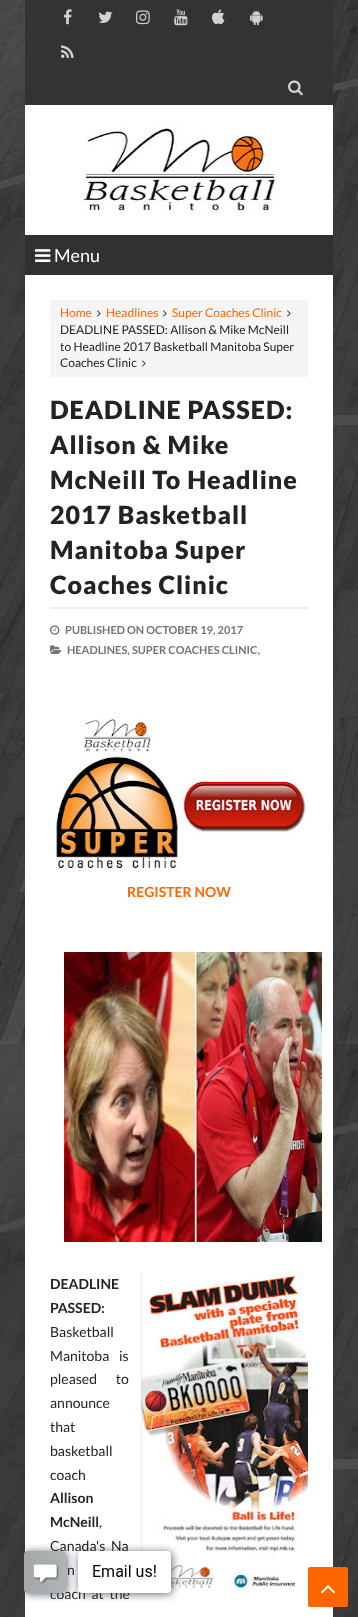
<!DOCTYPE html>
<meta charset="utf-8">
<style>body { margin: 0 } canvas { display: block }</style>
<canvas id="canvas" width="358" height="1617"></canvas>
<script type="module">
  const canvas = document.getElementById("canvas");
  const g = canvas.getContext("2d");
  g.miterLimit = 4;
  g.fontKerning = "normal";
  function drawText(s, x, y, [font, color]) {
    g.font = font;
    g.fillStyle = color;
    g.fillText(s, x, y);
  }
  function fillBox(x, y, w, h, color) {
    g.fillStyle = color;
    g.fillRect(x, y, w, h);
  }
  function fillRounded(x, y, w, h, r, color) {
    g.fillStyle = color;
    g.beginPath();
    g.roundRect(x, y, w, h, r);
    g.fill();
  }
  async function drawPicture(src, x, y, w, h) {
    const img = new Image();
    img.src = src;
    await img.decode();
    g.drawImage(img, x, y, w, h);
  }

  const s1 = ["18px Lato", "#FFFFFF"];
  const s2 = ["12px Lato", "#FF6600"];
  const s3 = ["12px Lato", "#232323"];
  const s4 = ["900 25px Lato", "#232323"];
  const s5 = ["bold 11px Lato", "#757575"];
  const s6 = ["bold 14px Lato", "#FF6600"];
  const s7 = ["bold 14px Lato", "#232323"];
  const s8 = ["14px Lato", "#232323"];

  fillBox(0, 0, 358, 1617, "#FFFFFF");
  await drawPicture("pic1.png", 0, 0, 358, 1617);
  fillBox(25, 105, 308, 1512, "#FFFFFF");
  fillBox(25, 0, 308, 105, "#333333");
  await drawPicture("pic2.png", 63, 9, 9, 16);
  await drawPicture("pic3.png", 98, 11, 15, 12);
  await drawPicture("pic4.png", 136, 10, 14, 15);
  await drawPicture("pic5.png", 174, 9, 14, 17);
  await drawPicture("pic6.png", 212, 9, 13, 16);
  await drawPicture("pic7.png", 250, 10, 13, 16);
  await drawPicture("pic8.png", 61, 45, 13, 13);
  await drawPicture("pic9.png", 288, 80, 15, 16);
  await drawPicture("pic10.png", 81, 125, 197, 88);
  fillBox(25, 235, 308, 40, "#313131");
  await drawPicture("pic11.png", 35, 249, 16, 13);
  drawText("Menu", 54, 262, s1);
  fillBox(50, 300, 258, 77, "#F5F5F5");
  drawText("Home", 60, 317, s2);
  await drawPicture("pic12.png", 97, 310, 4, 7);
  drawText("Headlines", 106, 317, s2);
  await drawPicture("pic12.png", 163, 310, 4, 7);
  drawText("Super Coaches Clinic", 172, 317, s2);
  await drawPicture("pic12.png", 287, 310, 4, 7);
  drawText("DEADLINE PASSED: Allison & Mike McNeill", 60, 334, s3);
  drawText("to Headline 2017 Basketball Manitoba Super", 60, 351, s3);
  drawText("Coaches Clinic", 60, 367, s3);
  await drawPicture("pic12.png", 142, 360, 4, 7);
  fillBox(50, 607, 258, 2, "#EEEEEE");
  g.letterSpacing = "1px";
  drawText("DEADLINE PASSED:", 50, 419, s4);
  drawText("Allison & Mike", 50, 454, s4);
  drawText("McNeill To Headline", 50, 489, s4);
  drawText("2017 Basketball", 50, 524, s4);
  drawText("Manitoba Super", 50, 559, s4);
  drawText("Coaches Clinic", 50, 594, s4);
  await drawPicture("pic13.png", 50, 625, 10, 10);
  g.letterSpacing = "0px";
  drawText("PUBLISHED ON OCTOBER 19, 2017", 65, 634, s5);
  await drawPicture("pic14.png", 50, 645, 12, 9);
  drawText("HEADLINES, SUPER COACHES CLINIC,", 67, 654, s5);
  await drawPicture("pic15.png", 56, 717, 252, 156);
  drawText("REGISTER NOW", 127, 897, s6);
  await drawPicture("pic16.png", 64, 952, 258, 290);
  drawText("DEADLINE", 50, 1289, s7);
  await drawPicture("pic17.png", 141, 1272, 167, 318);
  drawText("PASSED:", 50, 1313, s7);
  drawText("Basketball", 50, 1337, s8);
  g.wordSpacing = "7px";
  drawText("Manitoba is", 50, 1361, s8);
  g.wordSpacing = "16px";
  drawText("pleased to", 50, 1384, s8);
  g.wordSpacing = "0px";
  drawText("announce", 50, 1408, s8);
  drawText("that", 50, 1432, s8);
  drawText("basketball", 50, 1456, s8);
  drawText("coach", 50, 1480, s8);
  drawText("Allison", 50, 1503, s7);
  drawText("McNeill", 50, 1527, s7);
  drawText(",", 99, 1527, s8);
  drawText("Canada's", 50, 1551, s8);
  drawText("Na", 111, 1551, s8);
  g.wordSpacing = "8px";
  drawText("n", 67, 1575, s8);
  g.wordSpacing = "3px";
  drawText("coach at the", 50, 1599, s8);
  await drawPicture("pic18.png", 22, 1544, 158, 58);
  fillRounded(308, 1567, 40, 40, 2, "#FF6600");
  await drawPicture("pic19.png", 321, 1585, 14, 9);
</script>
